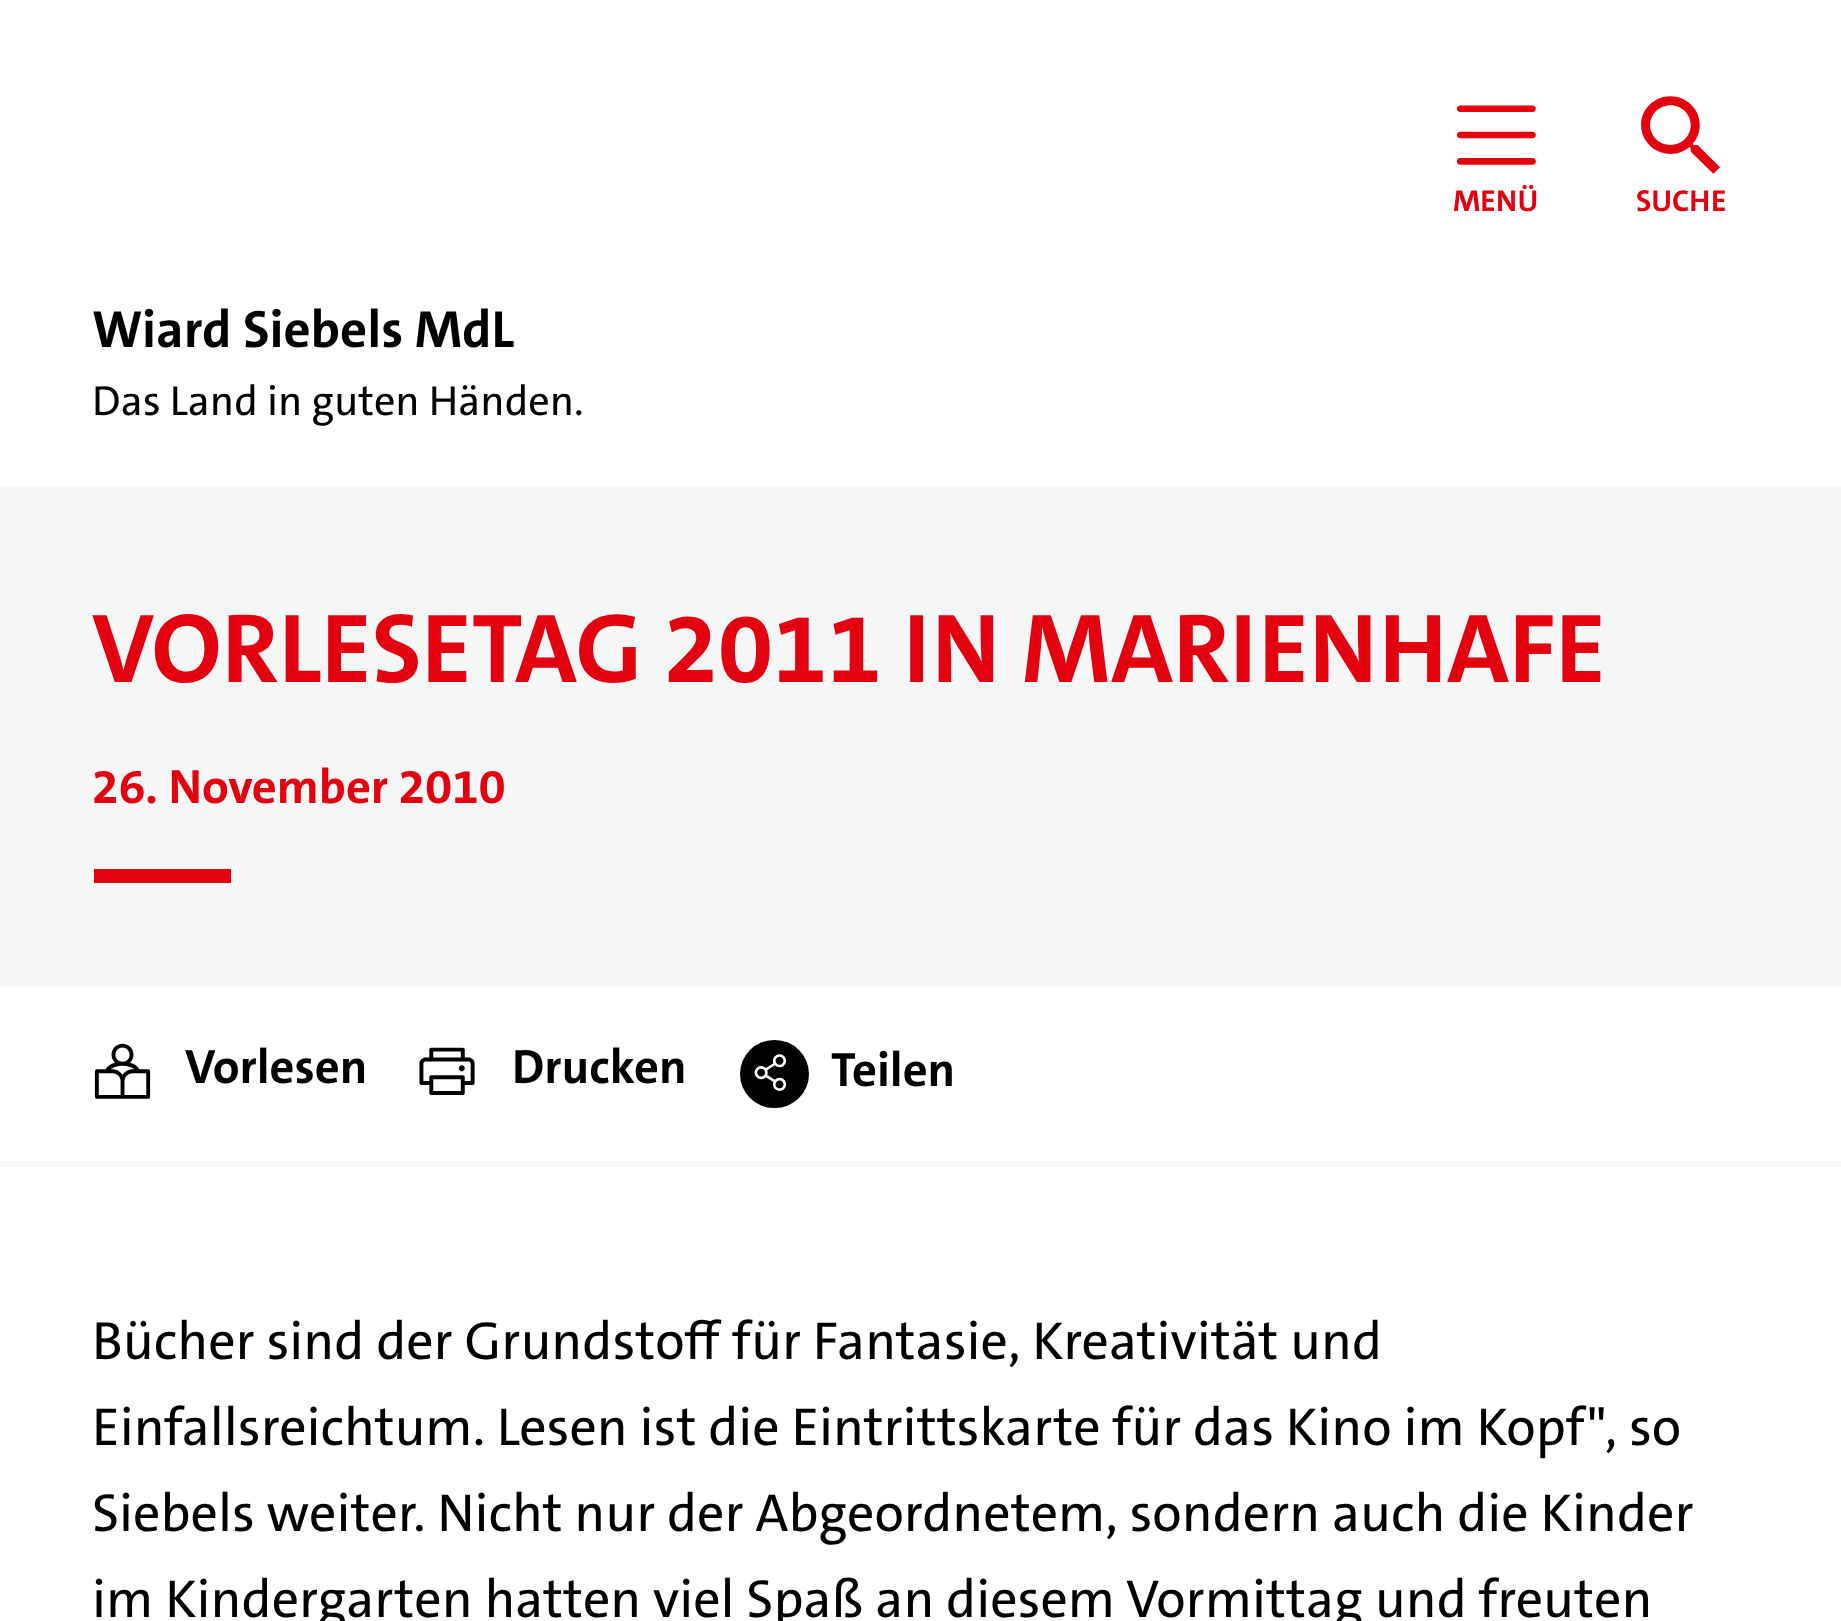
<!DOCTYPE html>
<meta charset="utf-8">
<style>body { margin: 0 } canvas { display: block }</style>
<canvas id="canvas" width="1841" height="1621"></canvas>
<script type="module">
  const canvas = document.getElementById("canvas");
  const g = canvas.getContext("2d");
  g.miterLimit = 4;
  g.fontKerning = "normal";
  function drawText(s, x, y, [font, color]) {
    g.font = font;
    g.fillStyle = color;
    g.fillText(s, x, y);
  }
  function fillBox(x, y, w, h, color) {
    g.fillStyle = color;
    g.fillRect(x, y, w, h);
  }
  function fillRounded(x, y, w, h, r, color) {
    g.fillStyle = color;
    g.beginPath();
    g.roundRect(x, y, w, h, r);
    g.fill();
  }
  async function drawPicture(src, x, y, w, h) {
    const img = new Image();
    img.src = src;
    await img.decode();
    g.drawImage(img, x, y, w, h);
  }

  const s1 = ["bold 30.5px 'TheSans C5'", "#E3000F"];
  const s2 = ["bold 52.75px 'TheSans C5'", "#000000"];
  const s3 = ["500 42.25px 'TheSans C5'", "#000000"];
  const s4 = ["bold 99px 'TheSans C5'", "#E3000F"];
  const s5 = ["bold 48.5px 'TheSans C5'", "#E3000F"];
  const s6 = ["bold 48.5px 'TheSans C5'", "#000000"];
  const s7 = ["500 53.9px 'TheSans C5'", "#000000"];

  fillBox(0, 0, 1841, 1621, "#FFFFFF");
  await drawPicture("pic1.png", 1456, 105, 80, 60);
  drawText("MENÜ", 1453, 211, s1);
  await drawPicture("pic2.png", 1641, 96, 79, 78);
  drawText("SUCHE", 1636, 211, s1);
  drawText("Wiard Siebels MdL", 92, 347, s2);
  drawText("Das Land in guten Händen.", 92, 415, s3);
  fillBox(0, 487, 1841, 500, "#F5F6F6");
  drawText("VORLESETAG 2011 IN MARIENHAFE", 92, 682, s4);
  drawText("26. November 2010", 92, 803, s5);
  fillBox(94, 869, 137, 14, "#E3000F");
  fillBox(0, 1161, 1841, 6, "#F5F6F6");
  await drawPicture("pic3.png", 94, 1043, 57, 56);
  drawText("Vorlesen", 185, 1083, s6);
  await drawPicture("pic4.png", 419, 1047, 56, 48);
  drawText("Drucken", 512, 1083, s6);
  fillRounded(740, 1040, 69, 68, 34, "#000000");
  await drawPicture("pic5.png", 754, 1054, 33, 37);
  drawText("Teilen", 831, 1086, s6);
  drawText("Bücher sind der Grundstoff für Fantasie, Kreativität und", 92, 1359, s7);
  drawText("Einfallsreichtum. Lesen ist die Eintrittskarte für das Kino im Kopf\", so", 92, 1445, s7);
  drawText("Siebels weiter. Nicht nur der Abgeordnetem, sondern auch die Kinder", 92, 1531, s7);
  drawText("im Kindergarten hatten viel Spaß an diesem Vormittag und freuten", 92, 1617, s7);
</script>
